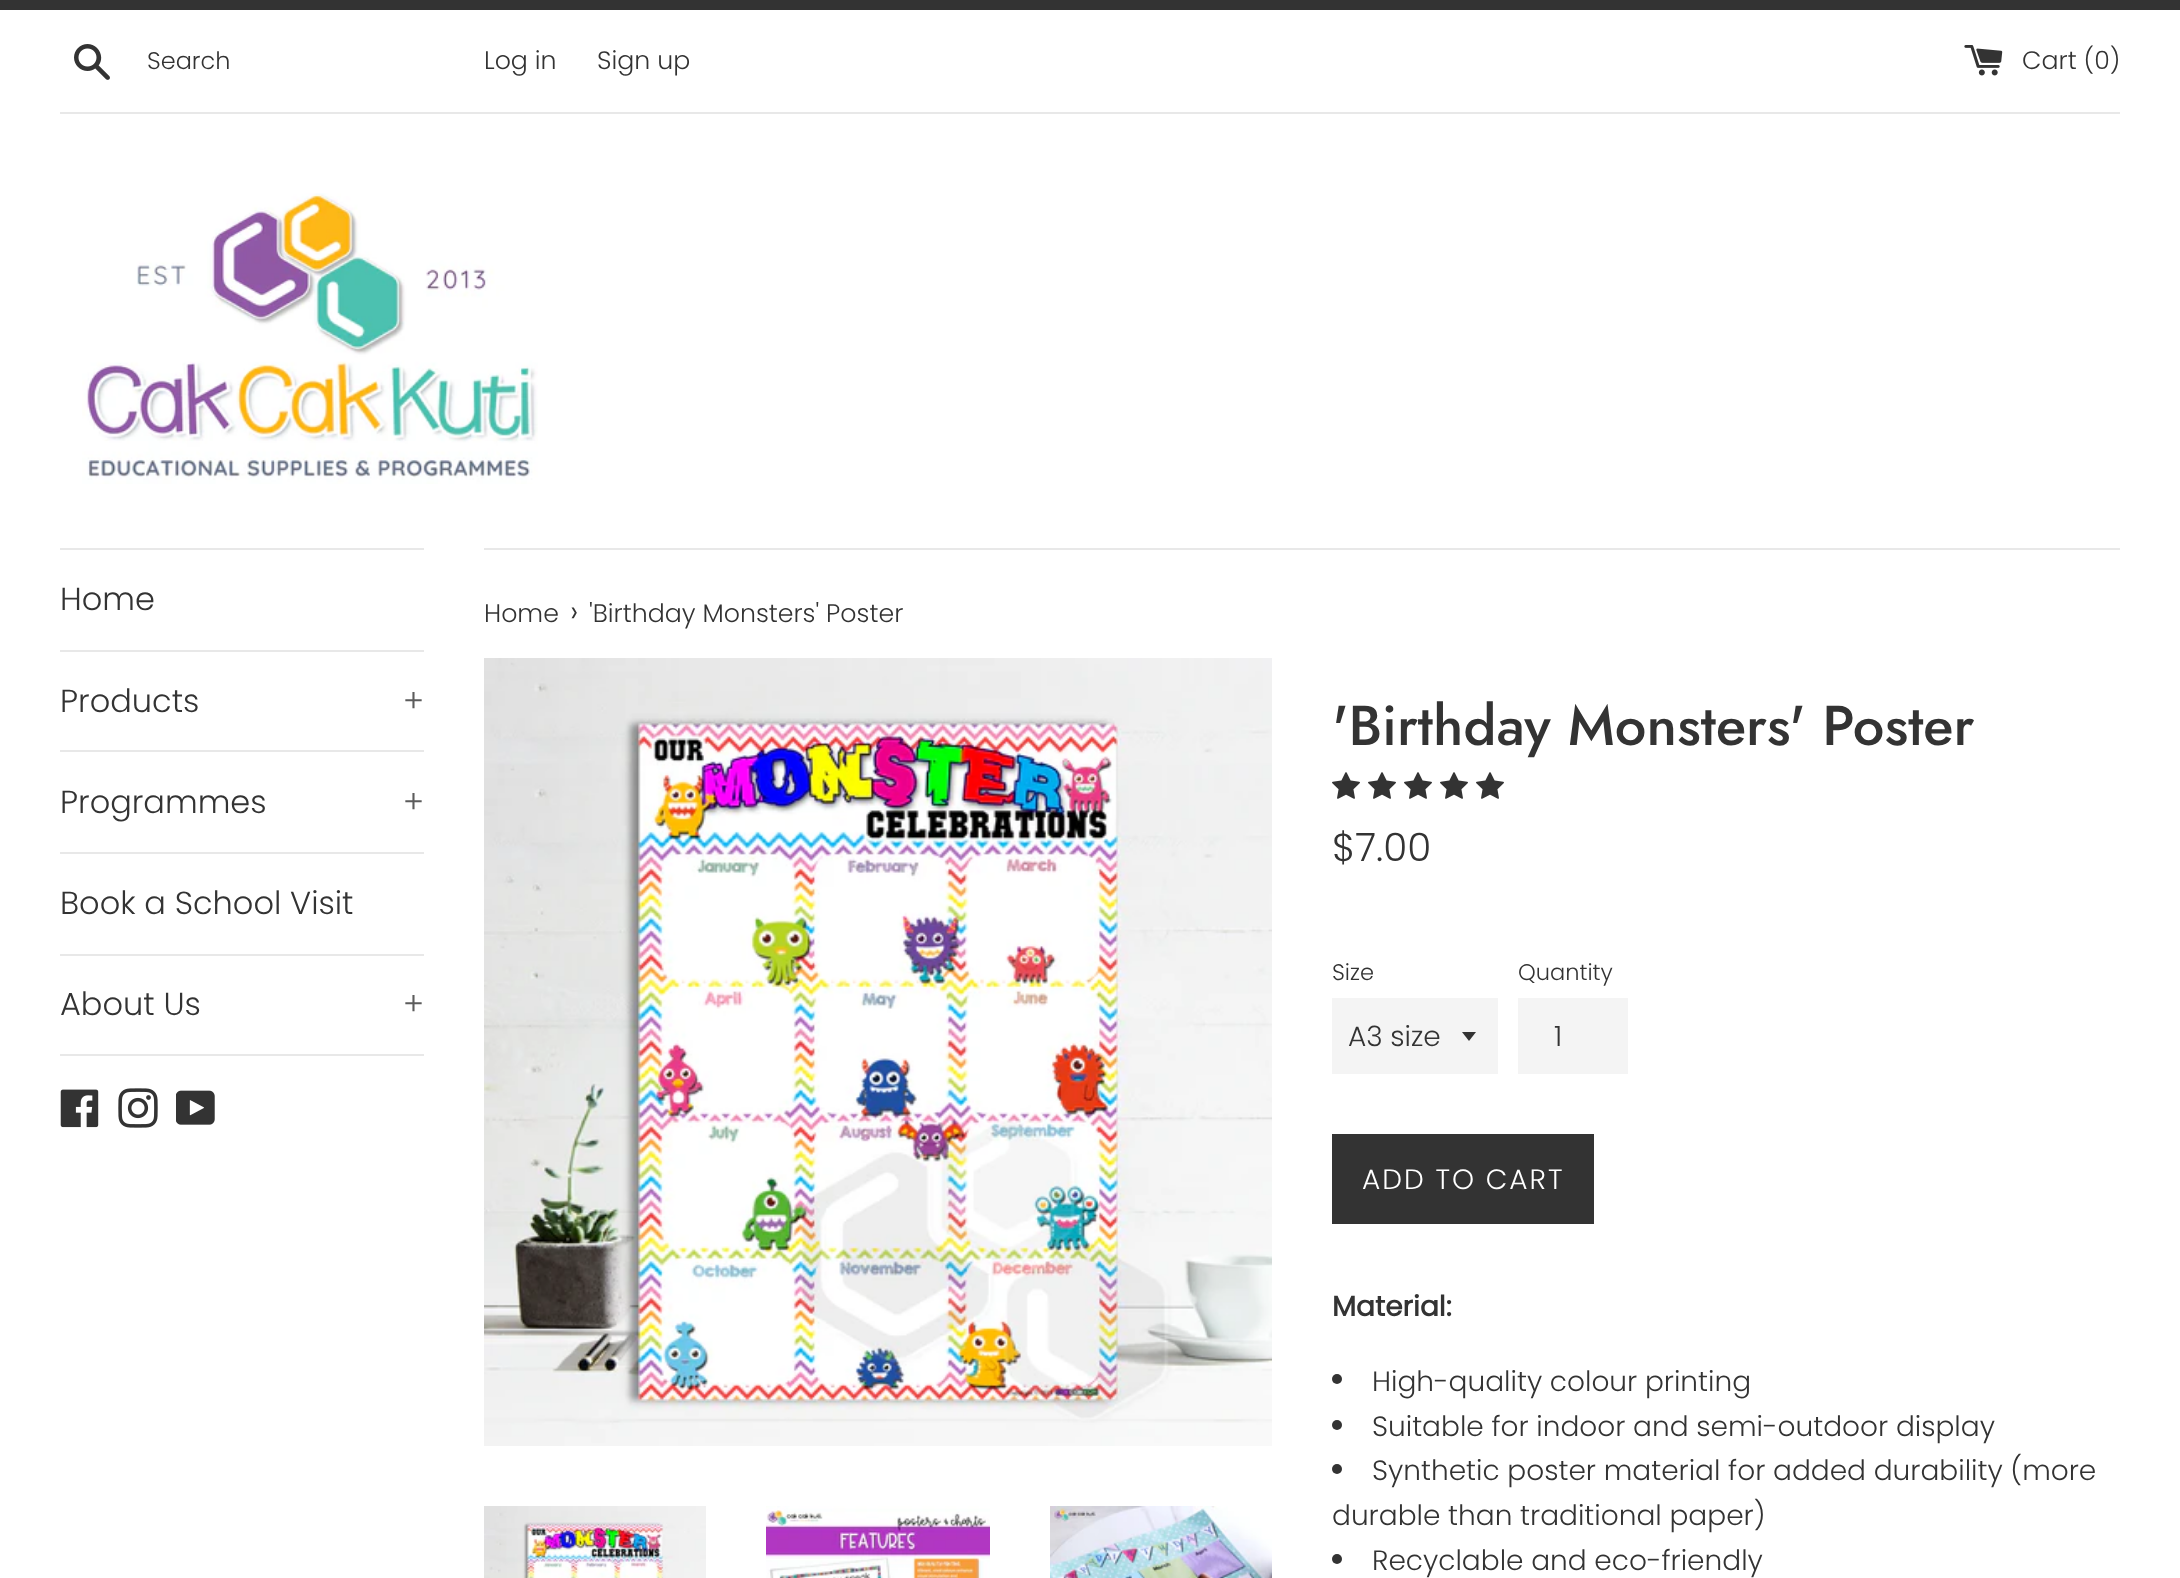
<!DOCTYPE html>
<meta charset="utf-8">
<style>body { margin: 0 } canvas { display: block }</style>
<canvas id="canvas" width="2180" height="1578"></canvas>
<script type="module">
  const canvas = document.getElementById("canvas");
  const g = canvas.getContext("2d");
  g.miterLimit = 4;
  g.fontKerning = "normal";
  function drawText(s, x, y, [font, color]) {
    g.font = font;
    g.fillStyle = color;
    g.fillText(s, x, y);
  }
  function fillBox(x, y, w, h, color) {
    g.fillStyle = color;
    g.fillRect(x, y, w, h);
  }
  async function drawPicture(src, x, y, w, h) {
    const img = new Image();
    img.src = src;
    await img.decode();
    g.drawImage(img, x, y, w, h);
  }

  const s1 = ["300 24px Poppins", "#333333"];
  const s2 = ["300 25.25px Poppins", "#333333"];
  const s3 = ["300 32px Poppins", "#333333"];
  const s4 = ["300 32px Poppins", "#5C5C5C"];
  const s5 = ["300 31px Poppins", "#333333"];
  const s6 = ["500 56px Jost", "#333333"];
  const s7 = ["300 39px Poppins", "#333333"];
  const s8 = ["300 22.5px Poppins", "#333333"];
  const s9 = ["300 28px Poppins", "#333333"];
  const s10 = ["300 28px Poppins", "#FFFFFF"];
  const s11 = ["bold 28px Poppins", "#333333"];

  fillBox(0, 0, 2180, 1578, "#FFFFFF");
  fillBox(0, 0, 2180, 10, "#333333");
  await drawPicture("pic1.png", 74, 44, 36, 36);
  drawText("Search", 147, 69, s1);
  drawText("Log in", 484, 69, s2);
  drawText("Sign up", 597, 69, s2);
  await drawPicture("pic2.png", 1964, 45, 39, 31);
  drawText("Cart (0)", 2022, 69, s2);
  fillBox(60, 112, 2060, 2, "#E8E8E8");
  await drawPicture("pic3.png", 82, 193, 456, 291);
  fillBox(60, 548, 364, 2, "#E8E8E8");
  fillBox(60, 650, 364, 2, "#E8E8E8");
  drawText("Home", 60, 610, s3);
  fillBox(60, 750, 364, 2, "#E8E8E8");
  drawText("Products", 60, 712, s3);
  drawText("+", 403, 712, s4);
  fillBox(60, 852, 364, 2, "#E8E8E8");
  drawText("Programmes", 60, 813, s3);
  drawText("+", 403, 813, s4);
  fillBox(60, 954, 364, 2, "#E8E8E8");
  drawText("Book a School Visit", 60, 914, s3);
  fillBox(60, 1054, 364, 2, "#E8E8E8");
  drawText("About Us", 60, 1015, s3);
  drawText("+", 403, 1015, s4);
  await drawPicture("pic4.png", 60, 1089, 39, 39);
  await drawPicture("pic5.png", 118, 1088, 40, 40);
  await drawPicture("pic6.png", 176, 1090, 39, 35);
  fillBox(484, 548, 1636, 2, "#E8E8E8");
  drawText("Home", 484, 622, s2);
  drawText("›", 570, 622, s5);
  drawText("'Birthday Monsters' Poster", 589, 622, s2);
  await drawPicture("pic7.png", 484, 658, 788, 788);
  await drawPicture("pic8.png", 484, 1506, 222, 72);
  await drawPicture("pic9.png", 766, 1506, 224, 72);
  await drawPicture("pic10.png", 1050, 1506, 222, 72);
  drawText("'Birthday Monsters' Poster", 1332, 745, s6);
  await drawPicture("pic11.png", 1332, 772, 28, 27);
  await drawPicture("pic11.png", 1368, 772, 28, 27);
  await drawPicture("pic11.png", 1404, 772, 28, 27);
  await drawPicture("pic11.png", 1440, 772, 28, 27);
  await drawPicture("pic11.png", 1476, 772, 28, 27);
  drawText("$7.00", 1332, 861, s7);
  drawText("Size", 1332, 980, s8);
  fillBox(1332, 998, 166, 76, "#F4F4F4");
  g.fillStyle = "#333333";
  g.beginPath();
  g.moveTo(1462, 1032);
  g.lineTo(1469, 1041);
  g.lineTo(1476, 1032);
  g.closePath();
  g.fill();
  drawText("A3 size", 1348, 1046, s9);
  drawText("Quantity", 1518, 980, s8);
  fillBox(1518, 998, 110, 76, "#F4F4F4");
  drawText("1", 1554, 1046, s9);
  fillBox(1332, 1134, 262, 90, "#333333");
  g.letterSpacing = "2px";
  drawText("ADD TO CART", 1362, 1189, s10);
  g.letterSpacing = "0px";
  drawText("Material:", 1332, 1316, s11);
  g.beginPath();
  g.arc(1337, 1379, 5, 0, Math.PI * 2);
  g.fill();
  drawText("High-quality colour printing", 1372, 1391, s9);
  g.beginPath();
  g.arc(1337, 1425, 5, 0, Math.PI * 2);
  g.fill();
  drawText("Suitable for indoor and semi-outdoor display", 1372, 1436, s9);
  g.beginPath();
  g.arc(1337, 1469, 5, 0, Math.PI * 2);
  g.fill();
  drawText("Synthetic poster material for added durability (more", 1372, 1480, s9);
  drawText("durable than traditional paper)", 1332, 1525, s9);
  g.beginPath();
  g.arc(1337, 1559, 5, 0, Math.PI * 2);
  g.fill();
  drawText("Recyclable and eco-friendly", 1372, 1570, s9);
</script>
